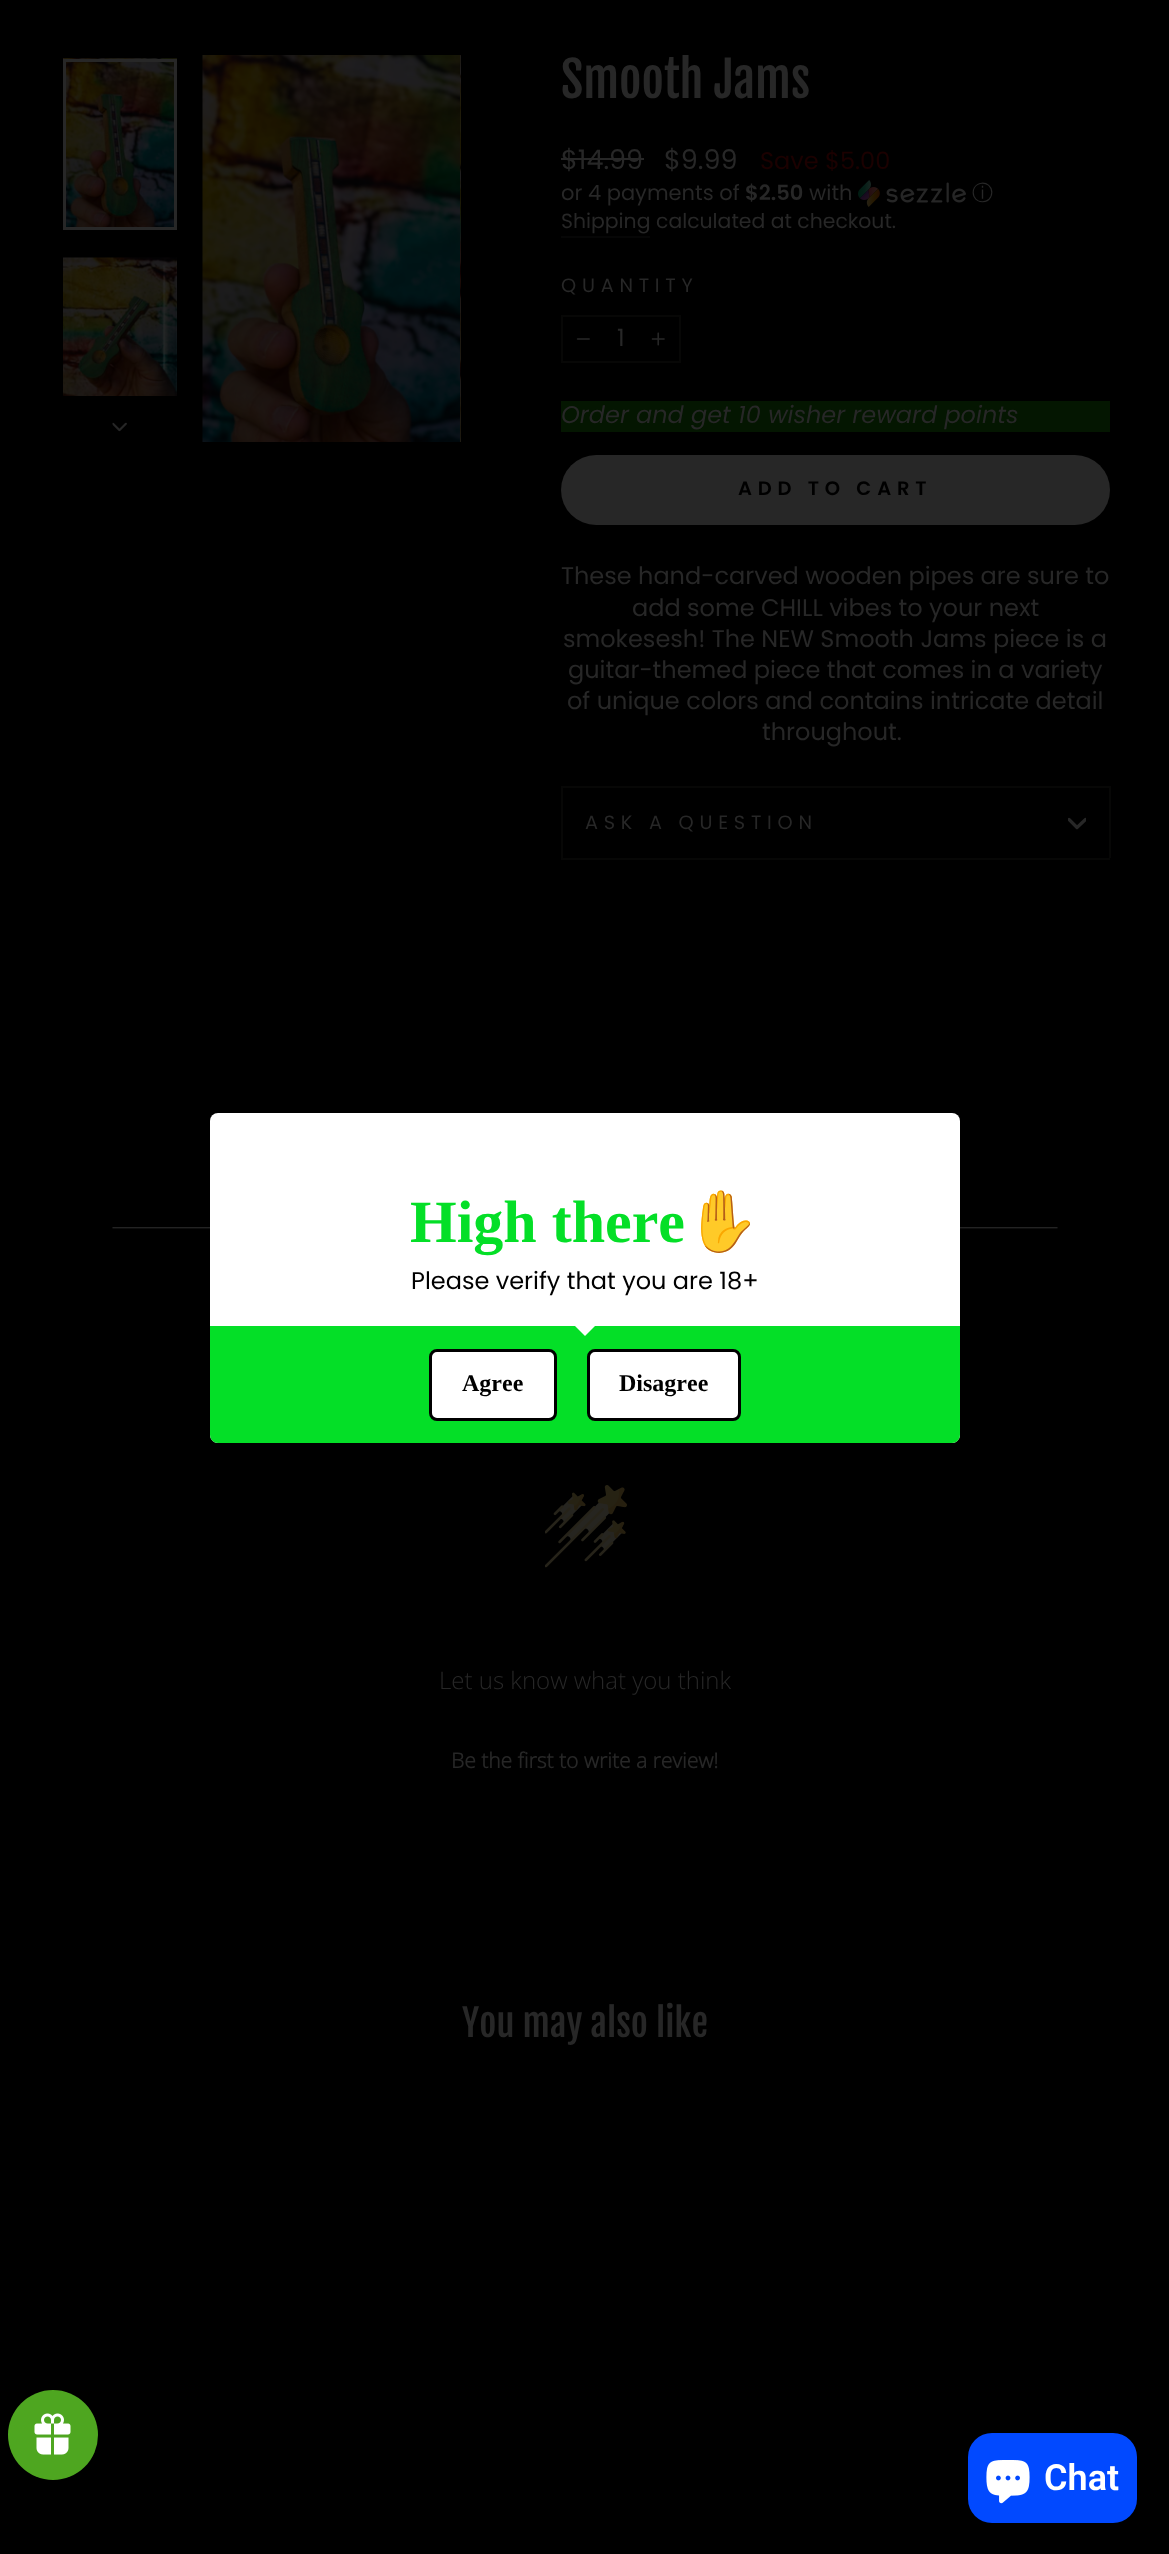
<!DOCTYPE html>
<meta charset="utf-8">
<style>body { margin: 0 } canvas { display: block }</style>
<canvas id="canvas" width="1169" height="2554"></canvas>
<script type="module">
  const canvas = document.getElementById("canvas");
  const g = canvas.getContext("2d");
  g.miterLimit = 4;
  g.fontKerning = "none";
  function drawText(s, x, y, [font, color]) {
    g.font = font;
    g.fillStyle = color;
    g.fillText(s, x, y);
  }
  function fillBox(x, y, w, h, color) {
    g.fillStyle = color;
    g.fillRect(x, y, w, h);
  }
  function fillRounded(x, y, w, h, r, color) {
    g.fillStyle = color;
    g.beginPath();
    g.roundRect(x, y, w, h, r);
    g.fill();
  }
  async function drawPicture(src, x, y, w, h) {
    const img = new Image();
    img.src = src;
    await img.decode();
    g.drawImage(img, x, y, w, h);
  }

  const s1 = ["48.5px Fjalla One", "#272727"];
  const s2 = ["27px Poppins", "#272727"];
  const s3 = ["24px Poppins", "#1B0000"];
  const s4 = ["21px Poppins", "#272727"];
  const s5 = ["600 21px Poppins", "#272727"];
  const s6 = ["500 21px WenQuanYi Zen Hei", "#272727"];
  const s7 = ["20.4px Poppins", "#272727"];
  const s8 = ["19.25px Poppins", "#272727"];
  const s9 = ["24px Poppins", "#272727"];
  const s10 = ["italic 24px Poppins", "#272727"];
  const s11 = ["600 19.5px Poppins", "#000000"];
  const s12 = ["300 24px Open Sans", "#272727"];
  const s13 = ["bold 21px Open Sans", "#272727"];
  const s14 = ["37px Fjalla One", "#272727"];
  const s15 = ["bold 60px Liberation Serif", "#04DF27"];
  const s16 = ["bold 60px Noto Color Emoji", "#04DF27"];
  const s17 = ["24px Poppins", "#000000"];
  const s18 = ["bold 24px Liberation Serif", "#000000"];
  const s19 = ["600 36px Roboto", "#FFFFFF"];

  fillBox(0, 0, 1169, 2554, "#000000");
  await drawPicture("pic1.png", 63, 58, 114, 169);
  g.strokeStyle = "#272727";
  g.lineWidth = 3;
  g.strokeRect(64.5, 60.5, 111, 168);
  await drawPicture("pic2.png", 63, 257, 114, 139);
  await drawPicture("pic3.png", 112, 422, 15, 10);
  await drawPicture("pic4.png", 202, 55, 258, 387);
  await drawPicture("pic5.png", 460, 55, 1, 387);
  drawText("Smooth Jams", 561, 98, s1);
  drawText("$14.99", 561, 169, s2);
  fillBox(561, 158, 83, 2, "#272727");
  drawText("$9.99", 664, 169, s2);
  drawText("Save $5.00", 760, 169, s3);
  drawText("or 4 payments of", 561, 200, s4);
  drawText("$2.50", 745, 200, s5);
  drawText("with", 809, 200, s4);
  await drawPicture("pic6.png", 858, 180, 108, 27);
  drawText("ⓘ", 972, 200, s6);
  fillBox(561, 236, 89, 2, "#060606");
  drawText("Shipping", 561, 228, s7);
  drawText("calculated at checkout.", 656, 228, s7);
  g.letterSpacing = "5.75px";
  drawText("QUANTITY", 561, 292, s8);
  g.strokeStyle = "#070706";
  g.lineWidth = 2;
  g.strokeRect(562, 316, 118, 46);
  await drawPicture("pic7.png", 576, 338, 14, 2);
  g.letterSpacing = "0px";
  drawText("1", 617, 346, s9);
  await drawPicture("pic8.png", 651, 332, 14, 14);
  fillBox(561, 401, 549, 31, "#041601");
  drawText("Order and get 10 wisher reward points", 561, 423, s10);
  fillRounded(561, 455, 549, 70, 35, "#272727");
  g.letterSpacing = "5.8px";
  drawText("ADD TO CART", 738, 495, s11);
  g.letterSpacing = "0px";
  drawText("These hand-carved wooden pipes are sure to", 561, 584, s9);
  drawText("add some CHILL vibes to your next", 632, 616, s9);
  drawText("smokesesh! The NEW Smooth Jams piece is a", 563, 647, s9);
  drawText("guitar-themed piece that comes in a variety", 568, 678, s9);
  drawText("of unique colors and contains intricate detail", 567, 709, s9);
  drawText("throughout.", 762, 740, s9);
  fillBox(561, 858, 549, 2, "#070706");
  fillBox(561, 786, 549, 2, "#070706");
  fillBox(1109, 786, 2, 72, "#070706");
  fillBox(561, 786, 2, 72, "#070706");
  g.letterSpacing = "5.75px";
  drawText("ASK A QUESTION", 585, 829, s8);
  g.save();
  g.beginPath();
  g.rect(1068, 815, 18, 18);
  g.clip();
  g.beginPath();
  g.moveTo(1069, 819.5);
  g.lineTo(1077, 827.5);
  g.lineTo(1085.5, 819.5);
  g.strokeStyle = "#272727";
  g.lineWidth = 3.2;
  g.lineCap = "round";
  g.lineJoin = "round";
  g.stroke();
  g.restore();
  await drawPicture("pic9.png", 112, 1227, 946, 2);
  await drawPicture("pic10.png", 545, 1485, 82, 83);
  g.letterSpacing = "0px";
  drawText("Let us know what you think", 439, 1689, s12);
  drawText("Be the first to write a review!", 451, 1768, s13);
  drawText("You may also like", 462, 2037, s14);
  fillRounded(210, 1113, 750, 330, 8, "#FFFFFF");
  drawText("High there", 410, 1242, s15);
  drawText("✋", 685, 1242, s16);
  drawText("Please verify that you are 18+", 411, 1289, s17);
  g.fillStyle = "#04DF27";
  g.beginPath();
  g.roundRect(210, 1326, 750, 117, [0, 0, 8, 8]);
  g.fill();
  g.fillStyle = "#FFFFFF";
  g.beginPath();
  g.moveTo(573, 1324);
  g.lineTo(597, 1324);
  g.lineTo(585, 1336);
  g.closePath();
  g.fill();
  g.beginPath();
  g.roundRect(430.5, 1350.5, 125, 69, 6.5);
  g.fill();
  g.strokeStyle = "#000000";
  g.lineWidth = 3;
  g.stroke();
  drawText("Agree", 462, 1391, s18);
  g.fillStyle = "#FFFFFF";
  g.beginPath();
  g.roundRect(588.5, 1350.5, 151, 69, 6.5);
  g.fill();
  g.stroke();
  drawText("Disagree", 619, 1391, s18);
  g.fillStyle = "#4EA620";
  g.beginPath();
  g.arc(53, 2435, 45, 0, Math.PI * 2);
  g.fill();
  await drawPicture("pic11.png", 34, 2413, 37, 42);
  fillRounded(968, 2433, 169, 90, 24, "#0149FF");
  await drawPicture("pic12.png", 986, 2460, 44, 44);
  drawText("Chat", 1044, 2490, s19);
</script>
